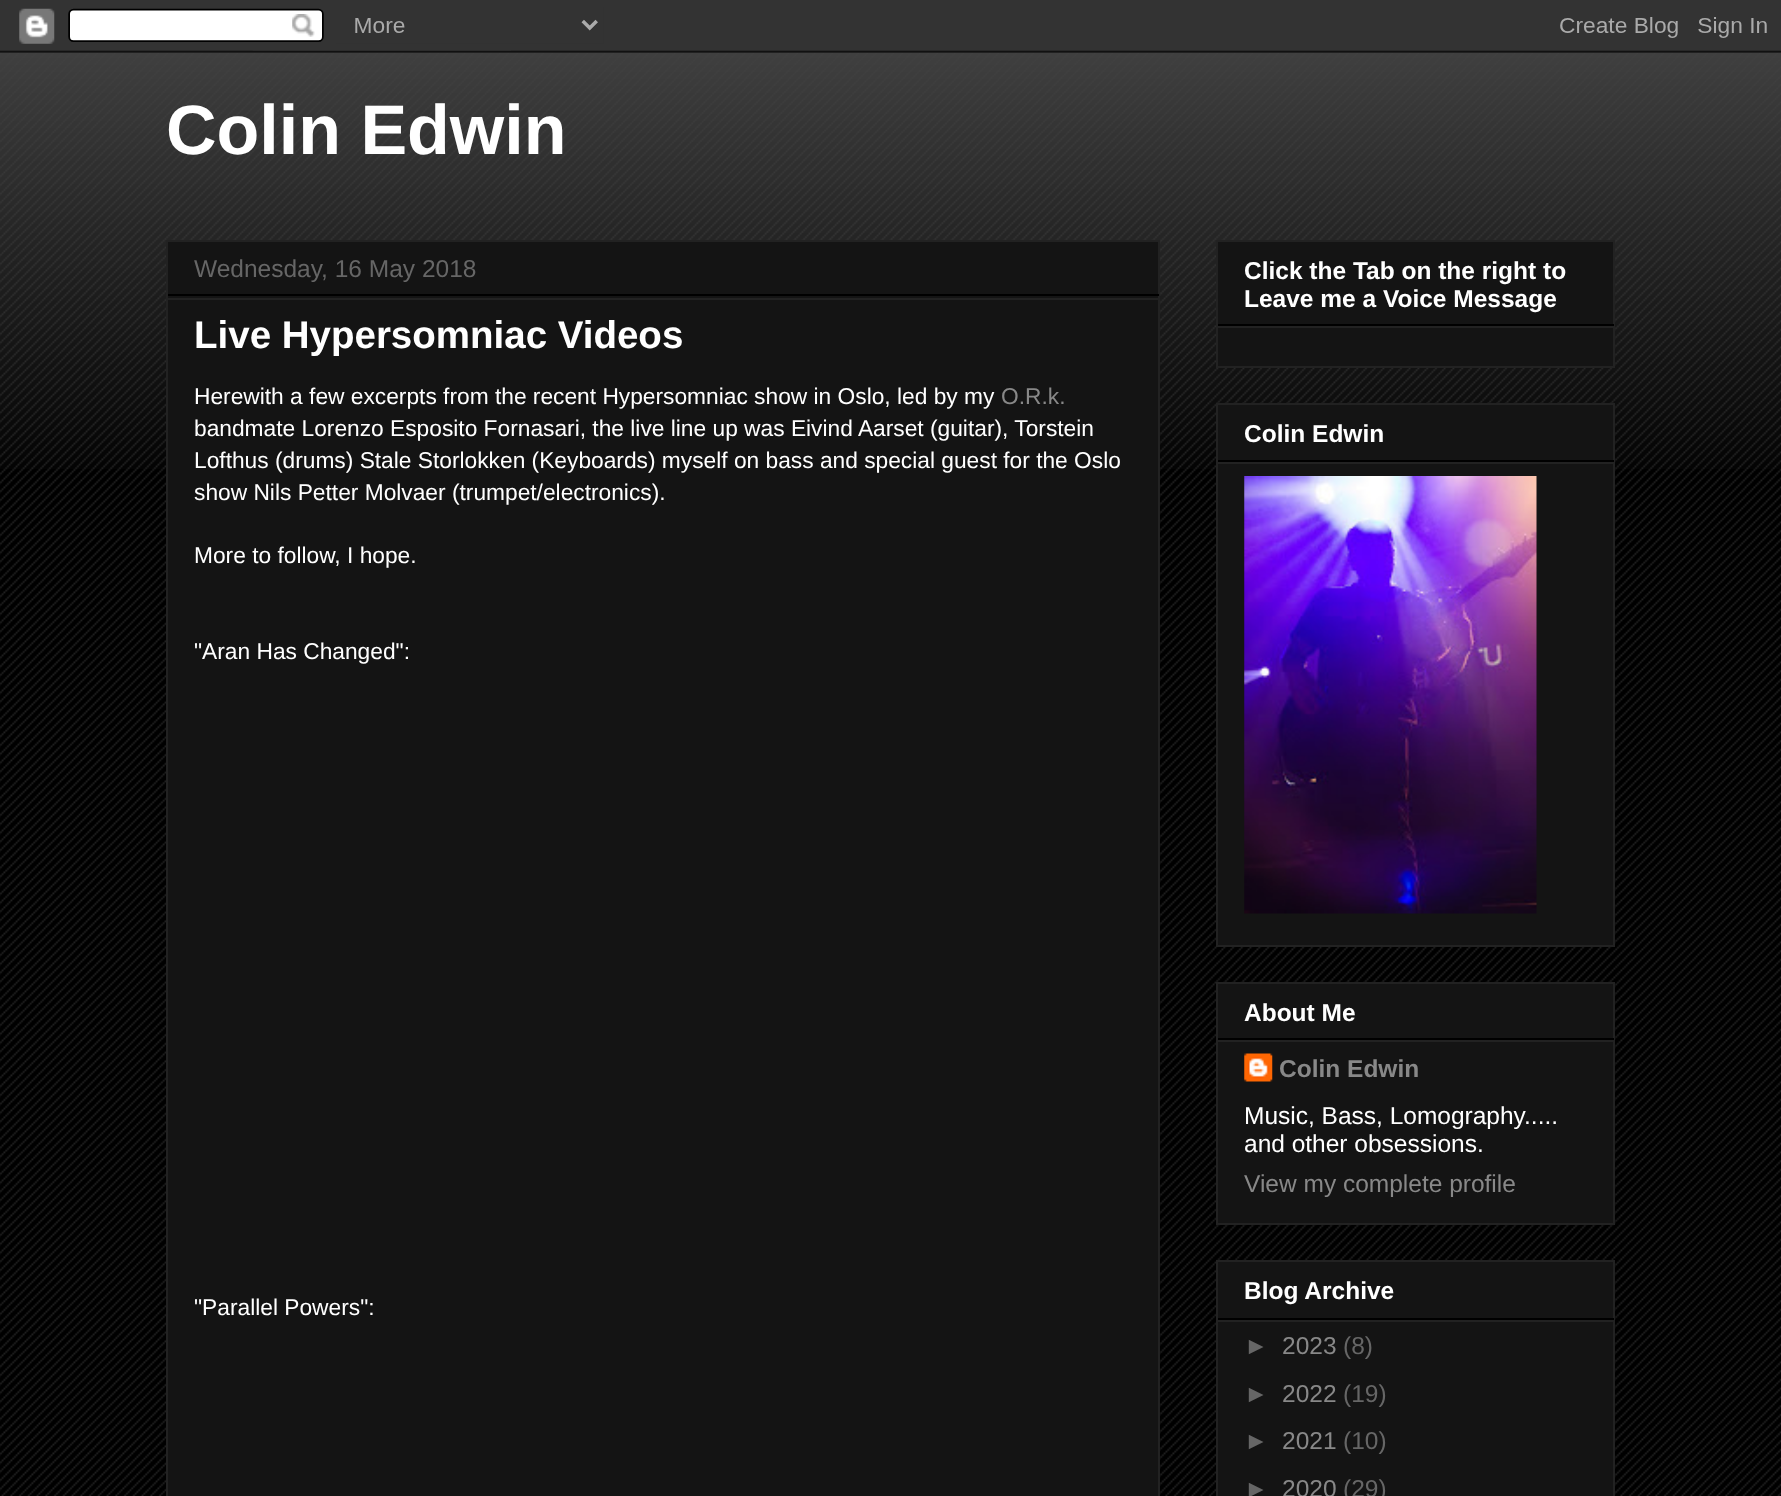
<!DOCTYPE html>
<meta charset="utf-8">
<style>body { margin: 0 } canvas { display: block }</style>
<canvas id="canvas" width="1781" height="1496"></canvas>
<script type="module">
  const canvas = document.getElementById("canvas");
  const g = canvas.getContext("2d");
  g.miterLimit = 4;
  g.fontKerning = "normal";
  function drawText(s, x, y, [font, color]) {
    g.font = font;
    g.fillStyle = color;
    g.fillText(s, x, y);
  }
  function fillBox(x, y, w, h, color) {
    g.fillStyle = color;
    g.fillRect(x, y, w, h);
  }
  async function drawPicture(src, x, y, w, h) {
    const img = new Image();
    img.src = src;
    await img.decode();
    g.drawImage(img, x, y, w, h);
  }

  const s1 = ["bold 70px Liberation Sans", "#FFFFFF"];
  const s2 = ["24.5px Liberation Sans", "#666666"];
  const s3 = ["bold 38.5px Liberation Sans", "#FFFFFF"];
  const s4 = ["22.75px Liberation Sans", "#FFFFFF"];
  const s5 = ["22.75px Liberation Sans", "#888888"];
  const s6 = ["bold 24.5px Liberation Sans", "#FFFFFF"];
  const s7 = ["bold 24.5px Liberation Sans", "#888888"];
  const s8 = ["24.5px Liberation Sans", "#FFFFFF"];
  const s9 = ["24.5px Liberation Sans", "#888888"];

  fillBox(0, 0, 1781, 1496, "#000000");
  await drawPicture("pic1.png", 0, 50, 1781, 1446);
  await drawPicture("pic3.png", 0, 50, 1781, 419);
  await drawPicture("pic2.png", 0, 0, 1781, 53);
  drawText("Colin Edwin", 166, 154, s1);
  g.fillStyle = "#141414";
  g.beginPath();
  g.rect(167, 241, 992, 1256);
  g.fill();
  g.strokeStyle = "#222222";
  g.lineWidth = 2;
  g.stroke();
  fillBox(168, 294, 991, 2, "#000000");
  drawText("Wednesday, 16 May 2018", 194, 277, s2);
  fillBox(168, 298, 991, 2, "#222222");
  drawText("Live Hypersomniac Videos", 194, 348, s3);
  drawText("Herewith a few excerpts from the recent Hypersomniac show in Oslo, led by my", 194, 404, s4);
  drawText("O.R.k.", 1001, 404, s5);
  drawText("bandmate Lorenzo Esposito Fornasari, the live line up was Eivind Aarset (guitar), Torstein", 194, 436, s4);
  drawText("Lofthus (drums) Stale Storlokken (Keyboards) myself on bass and special guest for the Oslo", 194, 468, s4);
  drawText("show Nils Petter Molvaer (trumpet/electronics).", 194, 500, s4);
  drawText("More to follow, I hope.", 194, 563, s4);
  drawText("\"Aran Has Changed\":", 194, 659, s4);
  drawText("\"Parallel Powers\":", 194, 1315, s4);
  g.fillStyle = "#141414";
  g.beginPath();
  g.rect(1217, 241, 397, 126);
  g.fill();
  g.stroke();
  fillBox(1218, 324, 396, 2, "#000000");
  drawText("Click the Tab on the right to", 1244, 279, s6);
  drawText("Leave me a Voice Message", 1244, 307, s6);
  fillBox(1218, 326, 396, 2, "#222222");
  g.fillStyle = "#141414";
  g.beginPath();
  g.rect(1217, 404, 397, 542);
  g.fill();
  g.stroke();
  fillBox(1218, 460, 396, 2, "#000000");
  drawText("Colin Edwin", 1244, 442, s6);
  fillBox(1218, 462, 396, 2, "#222222");
  await drawPicture("pic4.png", 1244, 476, 293, 438);
  g.fillStyle = "#141414";
  g.beginPath();
  g.rect(1217, 983, 397, 241);
  g.fill();
  g.stroke();
  fillBox(1218, 1038, 396, 2, "#000000");
  drawText("About Me", 1244, 1021, s6);
  fillBox(1218, 1040, 396, 2, "#222222");
  await drawPicture("pic5.png", 1244, 1053, 29, 29);
  drawText("Colin Edwin", 1279, 1077, s7);
  drawText("Music, Bass, Lomography.....", 1244, 1124, s8);
  drawText("and other obsessions.", 1244, 1152, s8);
  drawText("View my complete profile", 1244, 1192, s9);
  g.fillStyle = "#141414";
  g.beginPath();
  g.rect(1217, 1261, 397, 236);
  g.fill();
  g.stroke();
  fillBox(1218, 1318, 396, 2, "#000000");
  drawText("Blog Archive", 1244, 1299, s6);
  fillBox(1218, 1320, 396, 2, "#222222");
  drawText("►", 1244, 1354, s2);
  drawText("2023", 1282, 1354, s9);
  drawText("(8)", 1343, 1354, s2);
  drawText("►", 1244, 1402, s2);
  drawText("2022", 1282, 1402, s9);
  drawText("(19)", 1343, 1402, s2);
  drawText("►", 1244, 1449, s2);
  drawText("2021", 1282, 1449, s9);
  drawText("(10)", 1343, 1449, s2);
  drawText("►", 1244, 1497, s2);
  drawText("2020", 1282, 1497, s9);
  drawText("(29)", 1343, 1497, s2);
</script>
